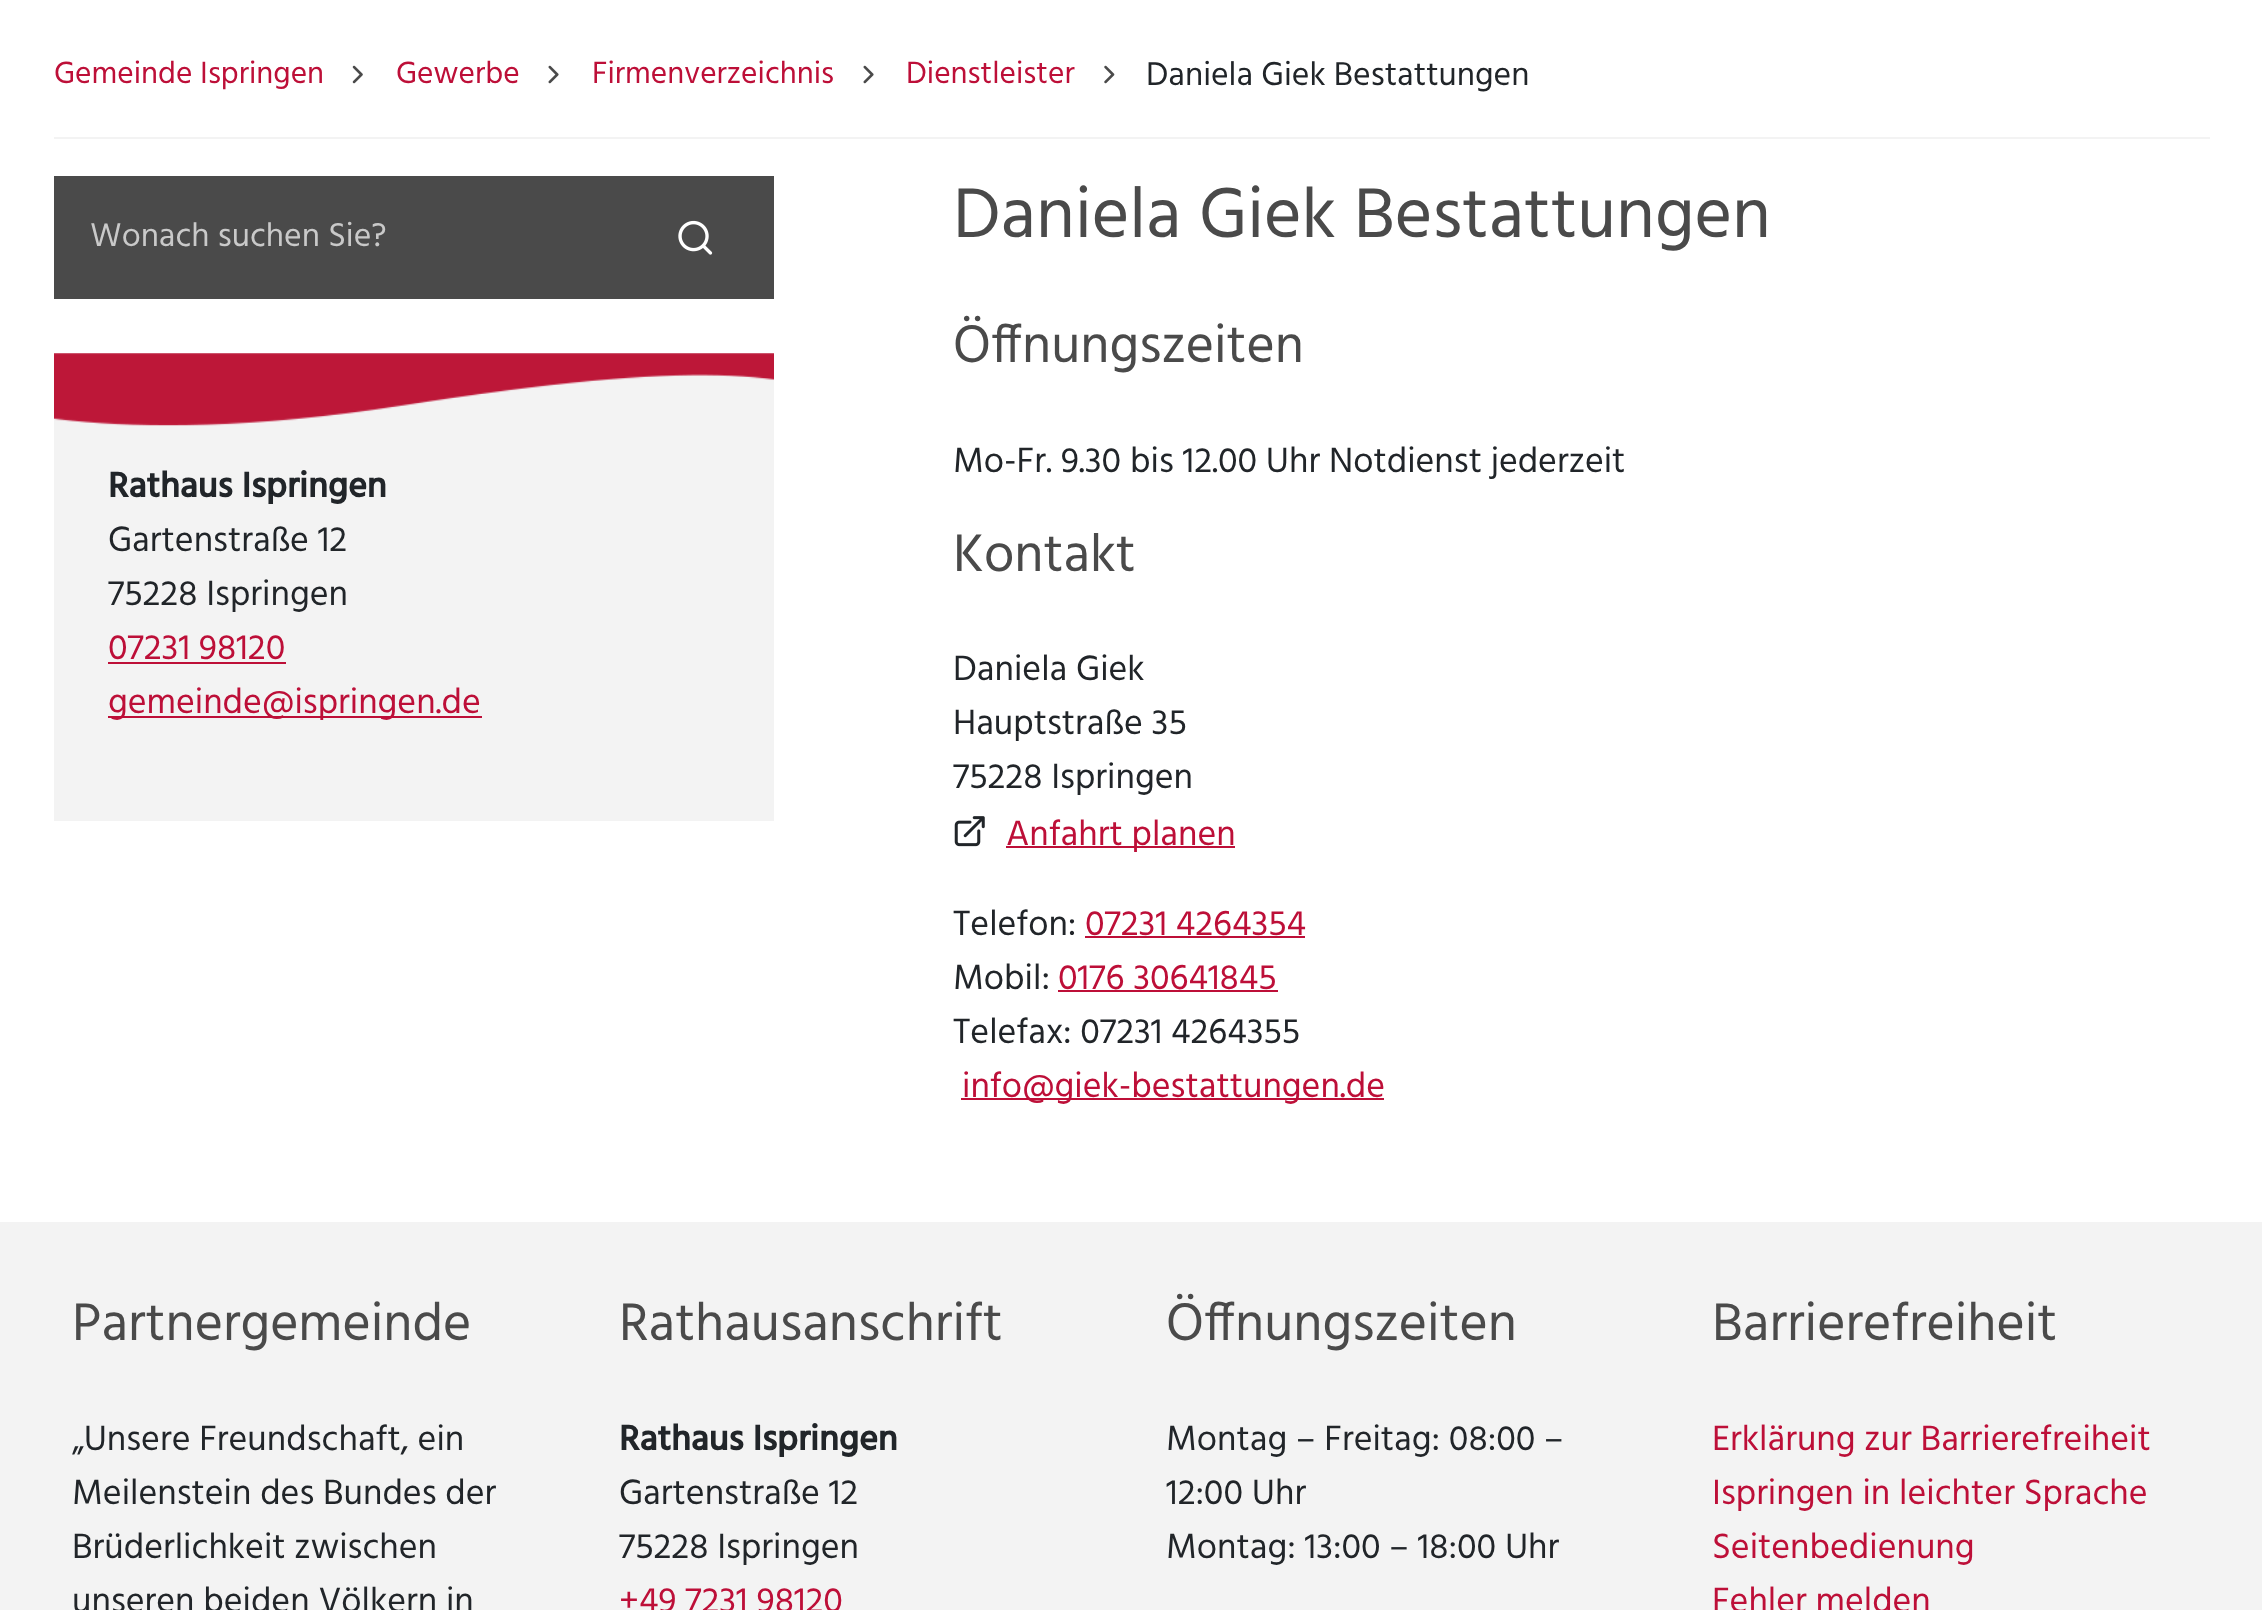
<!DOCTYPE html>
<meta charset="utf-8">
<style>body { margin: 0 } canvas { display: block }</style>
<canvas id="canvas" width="2262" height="1610"></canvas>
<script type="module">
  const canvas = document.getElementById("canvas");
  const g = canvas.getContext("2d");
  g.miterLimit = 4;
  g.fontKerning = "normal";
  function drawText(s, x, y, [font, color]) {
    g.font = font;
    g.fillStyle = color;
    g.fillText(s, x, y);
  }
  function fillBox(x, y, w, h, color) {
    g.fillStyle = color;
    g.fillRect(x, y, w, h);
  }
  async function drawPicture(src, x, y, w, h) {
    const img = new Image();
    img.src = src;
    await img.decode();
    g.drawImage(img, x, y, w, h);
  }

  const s1 = ["31.5px Hind", "#BD0F38"];
  const s2 = ["33.75px Hind", "#212529"];
  const s3 = ["33.75px Hind", "#C9C9C9"];
  const s4 = ["bold 36px Hind", "#212529"];
  const s5 = ["36px Hind", "#212529"];
  const s6 = ["36px Hind", "#BD0F38"];
  const s7 = ["72px Hind", "#4A4A4A"];
  const s8 = ["54px Hind", "#4A4A4A"];

  fillBox(0, 0, 2262, 1610, "#FFFFFF");
  fillBox(54, 137, 2156, 2, "#F3F3F3");
  drawText("Gemeinde Ispringen", 54, 83, s1);
  await drawPicture("pic1.png", 352, 65, 11, 19);
  drawText("Gewerbe", 396, 83, s1);
  await drawPicture("pic2.png", 548, 65, 11, 19);
  drawText("Firmenverzeichnis", 592, 83, s1);
  await drawPicture("pic2.png", 863, 65, 11, 19);
  drawText("Dienstleister", 906, 83, s1);
  await drawPicture("pic3.png", 1104, 65, 11, 19);
  drawText("Daniela Giek Bestattungen", 1146, 85, s2);
  fillBox(54, 176, 720, 123, "#4A4A4A");
  drawText("Wonach suchen Sie?", 90, 246, s3);
  await drawPicture("pic4.png", 678, 220, 35, 35);
  fillBox(54, 353, 720, 468, "#F3F3F3");
  await drawPicture("pic5.png", 54, 353, 720, 73);
  drawText("Rathaus Ispringen", 108, 497, s4);
  drawText("Gartenstraße 12", 108, 551, s5);
  drawText("75228 Ispringen", 108, 605, s5);
  drawText("07231 98120", 108, 659, s6);
  fillBox(108, 662, 178, 2, "#BD0F38");
  fillBox(108, 716, 374, 2, "#BD0F38");
  drawText("gemeinde@ispringen.de", 108, 713, s6);
  drawText("Daniela Giek Bestattungen", 953, 237, s7);
  drawText("Öffnungszeiten", 953, 362, s8);
  drawText("Mo-Fr. 9.30 bis 12.00 Uhr Notdienst jederzeit", 953, 472, s5);
  drawText("Kontakt", 953, 571, s8);
  drawText("Daniela Giek", 953, 680, s5);
  drawText("Hauptstraße 35", 953, 734, s5);
  drawText("75228 Ispringen", 953, 788, s5);
  await drawPicture("pic6.png", 954, 816, 31, 31);
  fillBox(1006, 846, 229, 2, "#BD0F38");
  drawText("Anfahrt planen", 1006, 845, s6);
  drawText("Telefon:", 953, 935, s5);
  drawText("07231 4264354", 1085, 935, s6);
  fillBox(1085, 936, 220, 2, "#BD0F38");
  drawText("Mobil:", 953, 989, s5);
  drawText("0176 30641845", 1058, 989, s6);
  fillBox(1058, 990, 220, 2, "#BD0F38");
  drawText("Telefax: 07231 4264355", 953, 1043, s5);
  fillBox(961, 1098, 423, 2, "#BD0F38");
  drawText("info@giek-bestattungen.de", 962, 1097, s6);
  fillBox(0, 1222, 2262, 388, "#F3F3F3");
  drawText("Partnergemeinde", 72, 1340, s8);
  drawText("„Unsere Freundschaft, ein", 72, 1450, s5);
  drawText("Meilenstein des Bundes der", 72, 1504, s5);
  drawText("Brüderlichkeit zwischen", 72, 1558, s5);
  drawText("unseren beiden Völkern in", 72, 1612, s5);
  drawText("Rathausanschrift", 619, 1340, s8);
  drawText("Rathaus Ispringen", 619, 1450, s4);
  drawText("Gartenstraße 12", 619, 1504, s5);
  drawText("75228 Ispringen", 619, 1558, s5);
  drawText("+49 7231 98120", 619, 1612, s6);
  drawText("Öffnungszeiten", 1166, 1340, s8);
  drawText("Montag – Freitag: 08:00 –", 1166, 1450, s5);
  drawText("12:00 Uhr", 1166, 1504, s5);
  drawText("Montag: 13:00 – 18:00 Uhr", 1166, 1558, s5);
  drawText("Barrierefreiheit", 1712, 1340, s8);
  drawText("Erklärung zur Barrierefreiheit", 1712, 1450, s6);
  drawText("Ispringen in leichter Sprache", 1712, 1504, s6);
  drawText("Seitenbedienung", 1712, 1558, s6);
  drawText("Fehler melden", 1712, 1612, s6);
</script>
